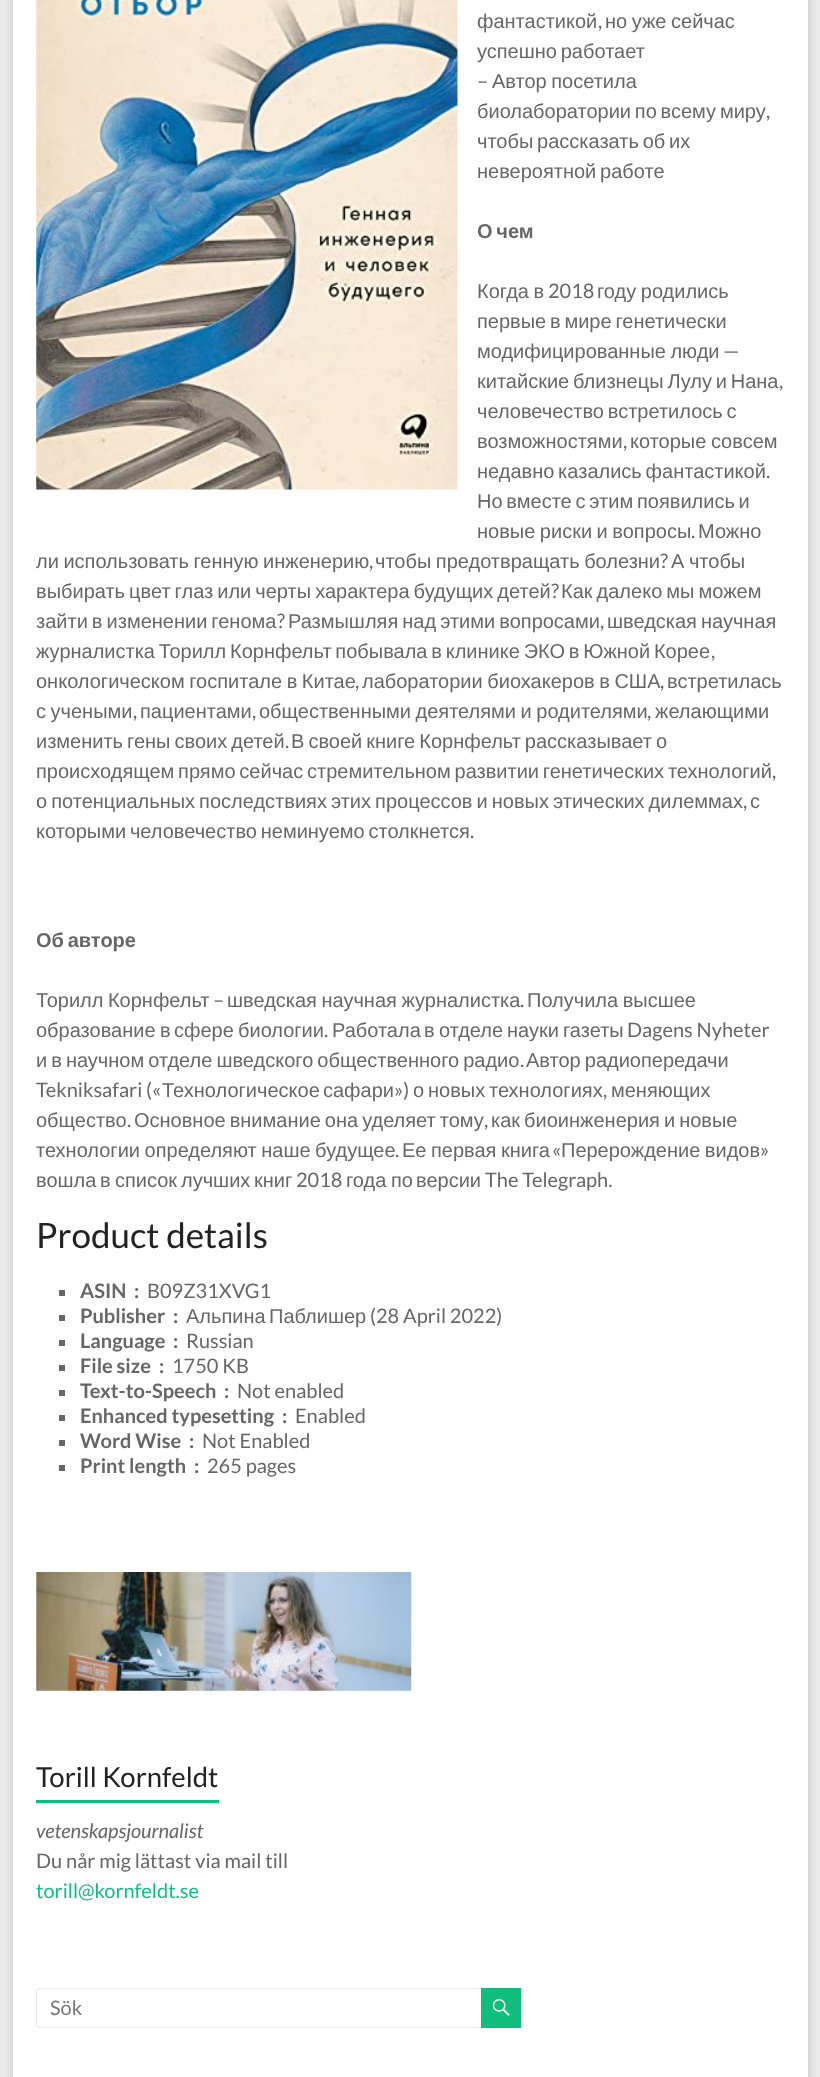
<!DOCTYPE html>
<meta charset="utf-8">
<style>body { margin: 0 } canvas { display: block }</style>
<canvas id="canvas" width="820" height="2077"></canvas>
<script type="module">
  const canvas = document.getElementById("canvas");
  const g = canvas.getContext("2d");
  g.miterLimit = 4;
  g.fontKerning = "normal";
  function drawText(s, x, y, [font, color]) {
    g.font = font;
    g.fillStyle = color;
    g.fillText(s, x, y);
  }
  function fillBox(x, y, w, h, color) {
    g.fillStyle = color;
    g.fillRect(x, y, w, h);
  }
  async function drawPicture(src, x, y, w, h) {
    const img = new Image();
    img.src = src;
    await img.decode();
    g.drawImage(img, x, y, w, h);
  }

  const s1 = ["20px Liberation Sans", "#666666"];
  const s2 = ["20px Lato", "#666666"];
  const s3 = ["bold 20px Liberation Sans", "#666666"];
  const s4 = ["35px Lato", "#222222"];
  const s5 = ["bold 20px Lato", "#666666"];
  const s6 = ["27.5px Lato", "#222222"];
  const s7 = ["italic 20px Lato", "#666666"];
  const s8 = ["20px Lato", "#0FBE7C"];
  const s9 = ["20px Lato", "#757575"];

  fillBox(0, 0, 820, 2077, "#EAEAEA");
  g.fillStyle = "rgba(100, 100, 100, 0.3)";
  g.filter = "blur(4px)";
  g.beginPath();
  g.rect(13, -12, 795, 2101);
  g.fill();
  g.filter = "none";
  fillBox(13, 0, 795, 2077, "#FFFFFF");
  await drawPicture("pic1.png", 36, 0, 422, 490);
  drawText("фантастикой", 477, 28, s1);
  drawText(",", 598, 28, s2);
  g.wordSpacing = "-1px";
  drawText("но уже сейчас", 605, 28, s1);
  g.wordSpacing = "-1.75px";
  drawText("успешно работает", 477, 58, s1);
  g.wordSpacing = "0px";
  drawText("–", 477, 88, s2);
  g.wordSpacing = "-1px";
  drawText("Автор посетила", 492, 88, s1);
  g.wordSpacing = "-1.75px";
  drawText("биолаборатории по всему миру", 477, 118, s1);
  g.wordSpacing = "0px";
  drawText(",", 766, 118, s2);
  g.wordSpacing = "-1.75px";
  drawText("чтобы рассказать об их", 477, 148, s1);
  drawText("невероятной работе", 477, 178, s1);
  drawText("О чем", 477, 238, s3);
  g.wordSpacing = "-1px";
  drawText("Когда в", 477, 298, s1);
  g.wordSpacing = "0px";
  drawText("2018", 548, 298, s2);
  g.wordSpacing = "-1px";
  drawText("году родились", 597, 298, s1);
  g.wordSpacing = "-1.75px";
  drawText("первые в мире генетически", 477, 328, s1);
  g.wordSpacing = "-1px";
  drawText("модифицированные люди", 477, 358, s1);
  g.wordSpacing = "0px";
  drawText("—", 723, 358, s2);
  g.wordSpacing = "-1.75px";
  drawText("китайские близнецы Лулу и Нана", 477, 388, s1);
  g.wordSpacing = "0px";
  drawText(",", 779, 388, s2);
  g.wordSpacing = "-1.75px";
  drawText("человечество встретилось с", 477, 418, s1);
  g.wordSpacing = "0px";
  drawText("возможностями", 477, 448, s1);
  drawText(",", 623, 448, s2);
  g.wordSpacing = "-1px";
  drawText("которые совсем", 630, 448, s1);
  g.wordSpacing = "-1.75px";
  drawText("недавно казались фантастикой", 477, 478, s1);
  g.wordSpacing = "0px";
  drawText(".", 766, 478, s2);
  g.wordSpacing = "-1.75px";
  drawText("Но вместе с этим появились и", 477, 508, s1);
  g.wordSpacing = "-1px";
  drawText("новые риски и вопросы", 477, 538, s1);
  g.wordSpacing = "0px";
  drawText(".", 691, 538, s2);
  drawText("Можно", 698, 538, s1);
  g.wordSpacing = "-1px";
  drawText("ли использовать генную инженерию", 36, 568, s1);
  g.wordSpacing = "0px";
  drawText(",", 369, 568, s2);
  g.wordSpacing = "-1px";
  drawText("чтобы предотвращать болезни", 375, 568, s1);
  g.wordSpacing = "0px";
  drawText("?", 660, 568, s2);
  g.wordSpacing = "-1px";
  drawText("А чтобы", 671, 568, s1);
  g.wordSpacing = "-1.5px";
  drawText("выбирать цвет глаз или черты характера будущих детей", 36, 598, s1);
  g.wordSpacing = "0px";
  drawText("?", 551, 598, s2);
  g.wordSpacing = "-1.5px";
  drawText("Как далеко мы можем", 561, 598, s1);
  drawText("зайти в изменении генома", 36, 628, s1);
  g.wordSpacing = "0px";
  drawText("?", 277, 628, s2);
  g.wordSpacing = "-1.5px";
  drawText("Размышляя над этими вопросами", 288, 628, s1);
  g.wordSpacing = "0px";
  drawText(",", 600, 628, s2);
  g.wordSpacing = "-1.5px";
  drawText("шведская научная", 607, 628, s1);
  g.wordSpacing = "-1.75px";
  drawText("журналистка Торилл Корнфельт побывала в клинике ЭКО в Южной Корее", 36, 658, s1);
  g.wordSpacing = "0px";
  drawText(",", 711, 658, s2);
  g.wordSpacing = "-1px";
  drawText("онкологическом госпитале в Китае", 36, 688, s1);
  g.wordSpacing = "0px";
  drawText(",", 355, 688, s2);
  g.wordSpacing = "-1px";
  drawText("лаборатории биохакеров в США", 362, 688, s1);
  g.wordSpacing = "0px";
  drawText(",", 660, 688, s2);
  drawText("встретилась", 667, 688, s1);
  g.wordSpacing = "-1px";
  drawText("с учеными", 36, 718, s1);
  g.wordSpacing = "0px";
  drawText(",", 133, 718, s2);
  drawText("пациентами", 140, 718, s1);
  drawText(",", 252, 718, s2);
  g.wordSpacing = "-1px";
  drawText("общественными деятелями и родителями", 259, 718, s1);
  g.wordSpacing = "0px";
  drawText(",", 647, 718, s2);
  drawText("желающими", 655, 718, s1);
  g.wordSpacing = "-1.5px";
  drawText("изменить гены своих детей", 36, 748, s1);
  g.wordSpacing = "0px";
  drawText(".", 285, 748, s2);
  g.wordSpacing = "-1.5px";
  drawText("В своей книге Корнфельт рассказывает о", 291, 748, s1);
  g.wordSpacing = "-1.75px";
  drawText("происходящем прямо сейчас стремительном развитии генетических технологий", 36, 778, s1);
  g.wordSpacing = "0px";
  drawText(",", 772, 778, s2);
  g.wordSpacing = "-1.5px";
  drawText("о потенциальных последствиях этих процессов и новых этических дилеммах", 36, 808, s1);
  g.wordSpacing = "0px";
  drawText(",", 743, 808, s2);
  drawText("с", 750, 808, s1);
  g.wordSpacing = "-1.75px";
  drawText("которыми человечество неминуемо столкнется", 36, 838, s1);
  g.wordSpacing = "0px";
  drawText(".", 470, 838, s2);
  g.wordSpacing = "-1.75px";
  drawText("Об авторе", 36, 947, s3);
  g.wordSpacing = "-1px";
  drawText("Торилл Корнфельт", 36, 1007, s1);
  g.wordSpacing = "0px";
  drawText("–", 213, 1007, s2);
  g.wordSpacing = "-1px";
  drawText("шведская научная журналистка", 227, 1007, s1);
  drawText("Получила высшее", 527, 1007, s1);
  g.wordSpacing = "0px";
  drawText(".", 520, 1007, s2);
  drawText("образование", 36, 1037, s1);
  drawText("в", 160, 1037, s1);
  drawText("сфере", 174, 1037, s1);
  drawText("биологии", 238, 1037, s1);
  drawText(".", 324, 1037, s2);
  drawText("Работала", 332, 1037, s1);
  drawText("в", 424, 1037, s1);
  drawText("отделе", 439, 1037, s1);
  drawText("науки", 507, 1037, s1);
  drawText("газеты", 563, 1037, s1);
  drawText("Dagens Nyheter", 627, 1037, s2);
  g.wordSpacing = "-1.5px";
  drawText("и в научном отделе шведского общественного радио", 36, 1067, s1);
  g.wordSpacing = "0px";
  drawText(".", 520, 1067, s2);
  g.wordSpacing = "-1.5px";
  drawText("Автор радиопередачи", 526, 1067, s1);
  g.wordSpacing = "0px";
  drawText("Tekniksafari («", 36, 1097, s2);
  drawText("Технологическое", 162, 1097, s1);
  drawText("сафари", 323, 1097, s1);
  drawText("»)", 394, 1097, s2);
  drawText("о", 413, 1097, s1);
  drawText("новых", 428, 1097, s1);
  drawText("технологиях", 489, 1097, s1);
  drawText(",", 603, 1097, s2);
  drawText("меняющих", 611, 1097, s1);
  drawText("общество", 36, 1127, s1);
  drawText(".", 127, 1127, s2);
  g.wordSpacing = "-1.5px";
  drawText("Основное внимание она уделяет тому", 134, 1127, s1);
  g.wordSpacing = "0px";
  drawText(",", 484, 1127, s2);
  g.wordSpacing = "-1.5px";
  drawText("как биоинженерия и новые", 491, 1127, s1);
  g.wordSpacing = "-1px";
  drawText("технологии определяют наше будущее", 36, 1157, s1);
  g.wordSpacing = "0px";
  drawText(".", 395, 1157, s2);
  g.wordSpacing = "-1px";
  drawText("Ее первая книга", 402, 1157, s1);
  g.wordSpacing = "0px";
  drawText("«", 552, 1157, s2);
  g.wordSpacing = "-1px";
  drawText("Перерождение видов", 561, 1157, s1);
  g.wordSpacing = "0px";
  drawText("»", 760, 1157, s2);
  drawText("вошла", 36, 1187, s1);
  drawText("в", 100, 1187, s1);
  drawText("список", 115, 1187, s1);
  drawText("лучших", 181, 1187, s1);
  drawText("книг", 254, 1187, s1);
  drawText("2018", 296, 1187, s2);
  drawText("года", 346, 1187, s1);
  drawText("по", 391, 1187, s1);
  drawText("версии", 416, 1187, s1);
  drawText("The Telegraph.", 485, 1187, s2);
  drawText("Product details", 36, 1248, s4);
  fillBox(59, 1290, 6, 6, "#666666");
  drawText("ASIN", 80, 1298, s5);
  drawText(": ", 134, 1298, s5);
  drawText("B09Z31XVG1", 147, 1298, s2);
  fillBox(59, 1315, 6, 6, "#666666");
  drawText("Publisher", 80, 1323, s5);
  drawText(": ", 173, 1323, s5);
  drawText("Альпина", 186, 1323, s1);
  drawText("Паблишер", 269, 1323, s1);
  drawText("(28 April 2022)", 370, 1323, s2);
  fillBox(59, 1340, 6, 6, "#666666");
  drawText("Language", 80, 1348, s5);
  drawText(": ", 173, 1348, s5);
  drawText("Russian", 186, 1348, s2);
  fillBox(59, 1365, 6, 6, "#666666");
  drawText("File size", 80, 1373, s5);
  drawText(": ", 159, 1373, s5);
  drawText("1750 KB", 172, 1373, s2);
  fillBox(59, 1390, 6, 6, "#666666");
  drawText("Text-to-Speech", 80, 1398, s5);
  drawText(": ", 224, 1398, s5);
  drawText("Not enabled", 237, 1398, s2);
  fillBox(59, 1415, 6, 6, "#666666");
  drawText("Enhanced typesetting", 80, 1423, s5);
  drawText(": ", 282, 1423, s5);
  drawText("Enabled", 295, 1423, s2);
  fillBox(59, 1440, 6, 6, "#666666");
  drawText("Word Wise", 80, 1448, s5);
  drawText(": ", 189, 1448, s5);
  drawText("Not Enabled", 202, 1448, s2);
  fillBox(59, 1465, 6, 6, "#666666");
  drawText("Print length", 80, 1473, s5);
  drawText(": ", 194, 1473, s5);
  drawText("265 pages", 207, 1473, s2);
  await drawPicture("pic2.png", 36, 1572, 376, 119);
  drawText("Torill Kornfeldt", 36, 1787, s6);
  fillBox(36, 1800, 183, 3, "#0FBE7C");
  drawText("vetenskapsjournalist", 36, 1838, s7);
  drawText("Du når mig lättast via mail till", 36, 1868, s2);
  drawText("torill@kornfeldt.se", 36, 1898, s8);
  g.beginPath();
  g.roundRect(36.5, 1988.5, 448, 39, 3.5);
  g.strokeStyle = "#EAEAEA";
  g.stroke();
  drawText("Sök", 50, 2015, s9);
  fillBox(481, 1988, 40, 40, "#0FBE7C");
  await drawPicture("pic3.png", 492, 1999, 18, 17);
</script>
